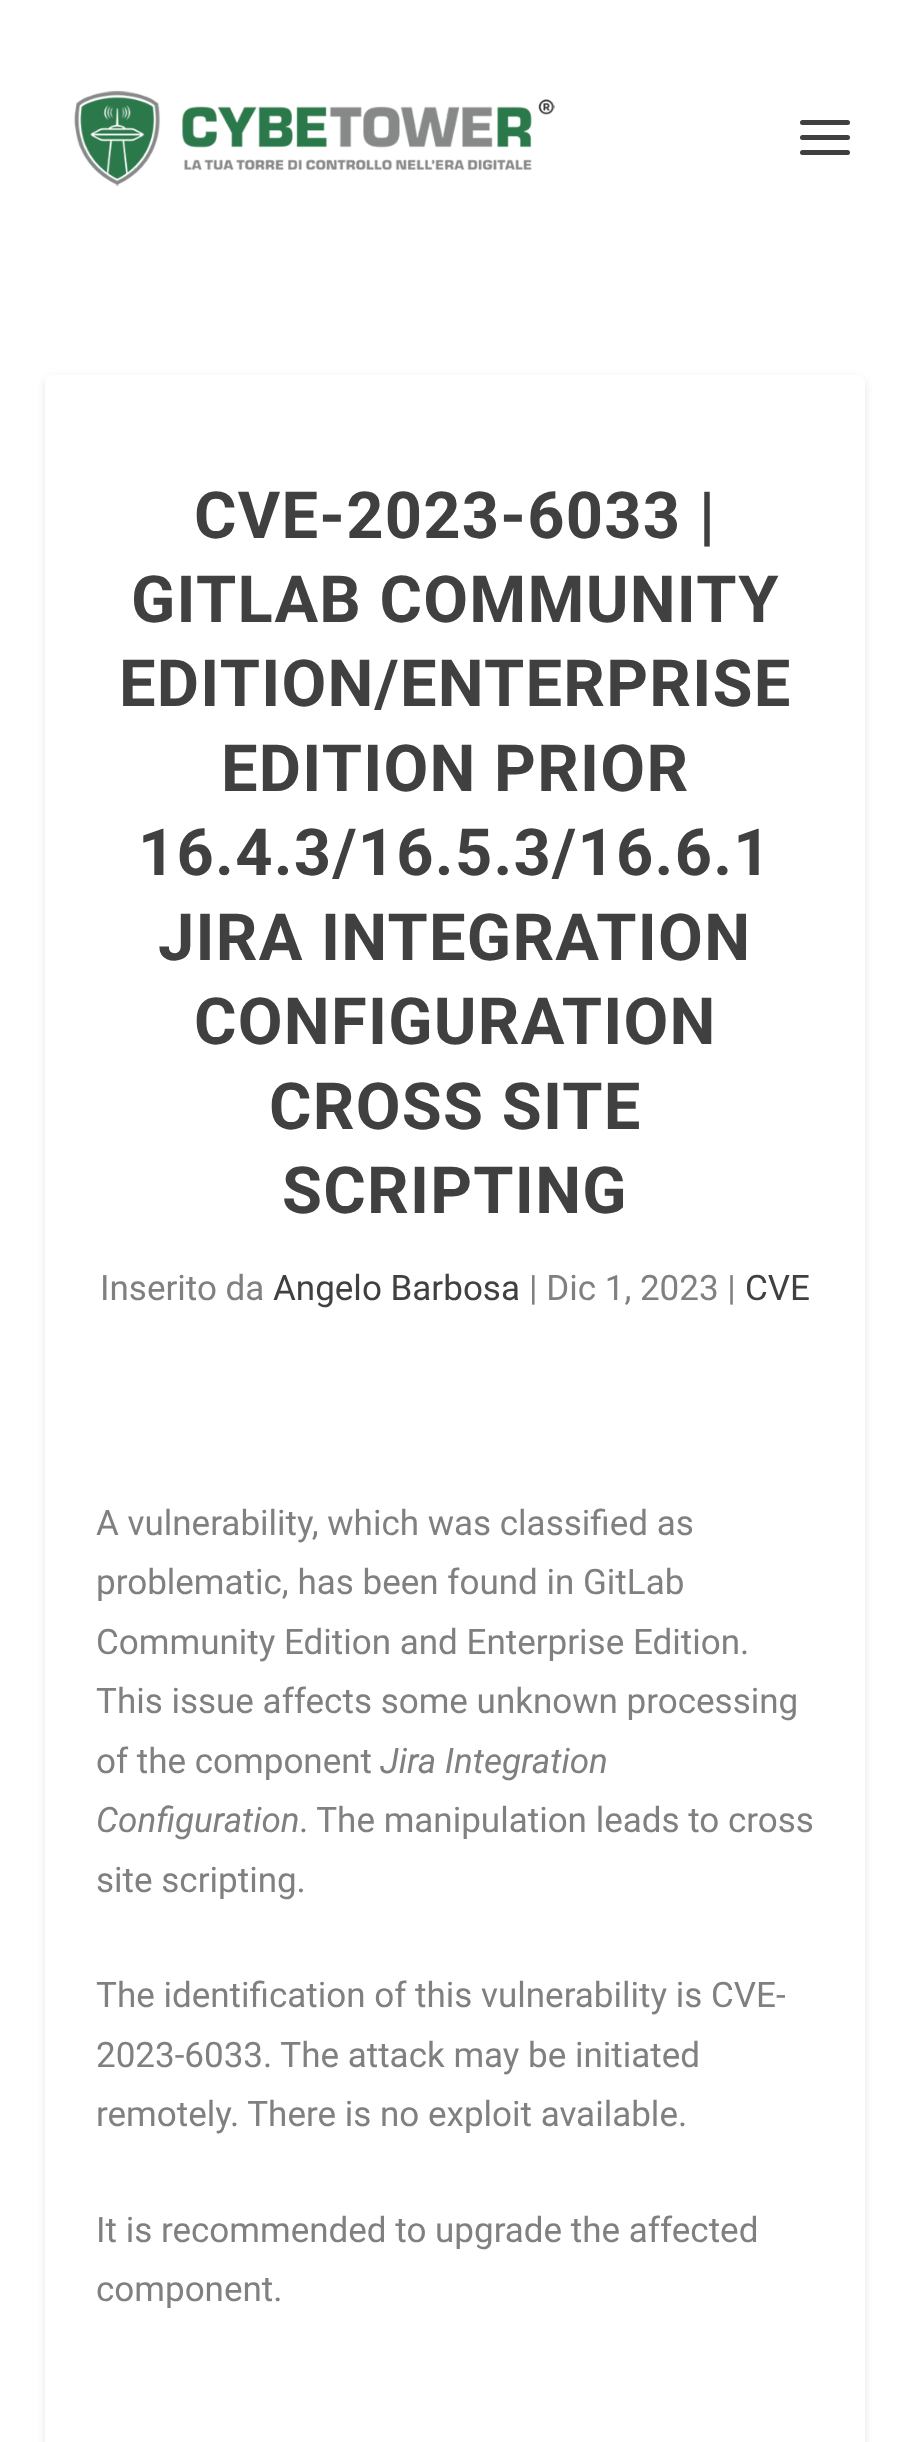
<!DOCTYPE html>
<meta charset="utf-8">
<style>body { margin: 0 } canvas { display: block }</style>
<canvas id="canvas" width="910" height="2442"></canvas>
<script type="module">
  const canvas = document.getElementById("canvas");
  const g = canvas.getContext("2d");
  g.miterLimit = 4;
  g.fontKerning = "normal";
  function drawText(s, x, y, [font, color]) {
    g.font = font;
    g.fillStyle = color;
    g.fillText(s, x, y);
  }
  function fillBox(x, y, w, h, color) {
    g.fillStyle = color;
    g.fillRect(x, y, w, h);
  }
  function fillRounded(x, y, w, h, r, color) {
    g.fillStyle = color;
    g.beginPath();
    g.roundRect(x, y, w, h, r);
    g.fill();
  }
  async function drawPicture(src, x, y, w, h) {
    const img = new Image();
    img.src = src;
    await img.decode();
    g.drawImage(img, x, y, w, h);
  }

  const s1 = ["bold 65px Roboto", "#404040"];
  const s2 = ["35px Roboto", "#808080"];
  const s3 = ["35px Roboto", "#404040"];
  const s4 = ["italic 35px Roboto", "#808080"];

  fillBox(0, 0, 910, 2442, "#FFFFFF");
  await drawPicture("pic1.png", 74, 90, 481, 96);
  fillRounded(800, 120, 50, 5, 2.5, "#404040");
  fillRounded(800, 135, 50, 5, 2.5, "#404040");
  fillRounded(800, 150, 50, 5, 2.5, "#404040");
  g.save();
  g.beginPath();
  g.moveTo(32, 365);
  g.lineTo(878, 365);
  g.lineTo(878, 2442);
  g.lineTo(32, 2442);
  g.closePath();
  g.moveTo(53, 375);
  g.lineTo(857, 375);
  g.bezierCurveTo(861.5, 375, 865, 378.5, 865, 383);
  g.lineTo(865, 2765);
  g.bezierCurveTo(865, 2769.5, 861.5, 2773, 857, 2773);
  g.lineTo(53, 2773);
  g.bezierCurveTo(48.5, 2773, 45, 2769.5, 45, 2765);
  g.lineTo(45, 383);
  g.bezierCurveTo(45, 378.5, 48.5, 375, 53, 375);
  g.closePath();
  g.clip("evenodd");
  g.fillStyle = "rgba(0, 0, 0, 0.1)";
  g.filter = "blur(4px)";
  g.beginPath();
  g.roundRect(45, 378, 820, 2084, 8);
  g.fill();
  g.filter = "none";
  g.restore();
  g.letterSpacing = "1.25px";
  drawText("CVE-2023-6033 |", 194, 538, s1);
  drawText("GITLAB COMMUNITY", 131, 622, s1);
  drawText("EDITION/ENTERPRISE", 119, 706, s1);
  drawText("EDITION PRIOR", 221, 791, s1);
  drawText("16.4.3/16.5.3/16.6.1", 138, 875, s1);
  drawText("JIRA INTEGRATION", 158, 960, s1);
  drawText("CONFIGURATION", 194, 1044, s1);
  drawText("CROSS SITE", 269, 1129, s1);
  drawText("SCRIPTING", 282, 1213, s1);
  g.letterSpacing = "0px";
  drawText("Inserito da", 100, 1300, s2);
  drawText("Angelo Barbosa", 273, 1300, s3);
  drawText("| Dic 1, 2023 |", 529, 1300, s2);
  drawText("CVE", 745, 1300, s3);
  drawText("A vulnerability, which was classified as", 96, 1535, s2);
  drawText("problematic, has been found in GitLab", 96, 1594, s2);
  drawText("Community Edition and Enterprise Edition.", 96, 1654, s2);
  drawText("This issue affects some unknown processing", 96, 1713, s2);
  drawText("of the component", 96, 1773, s2);
  drawText("Jira Integration", 380, 1773, s4);
  drawText("Configuration", 96, 1832, s4);
  drawText(". The manipulation leads to cross", 299, 1832, s2);
  drawText("site scripting.", 96, 1892, s2);
  drawText("The identification of this vulnerability is CVE-", 96, 2007, s2);
  drawText("2023-6033. The attack may be initiated", 96, 2067, s2);
  drawText("remotely. There is no exploit available.", 96, 2126, s2);
  drawText("It is recommended to upgrade the affected", 96, 2242, s2);
  drawText("component.", 96, 2301, s2);
</script>
